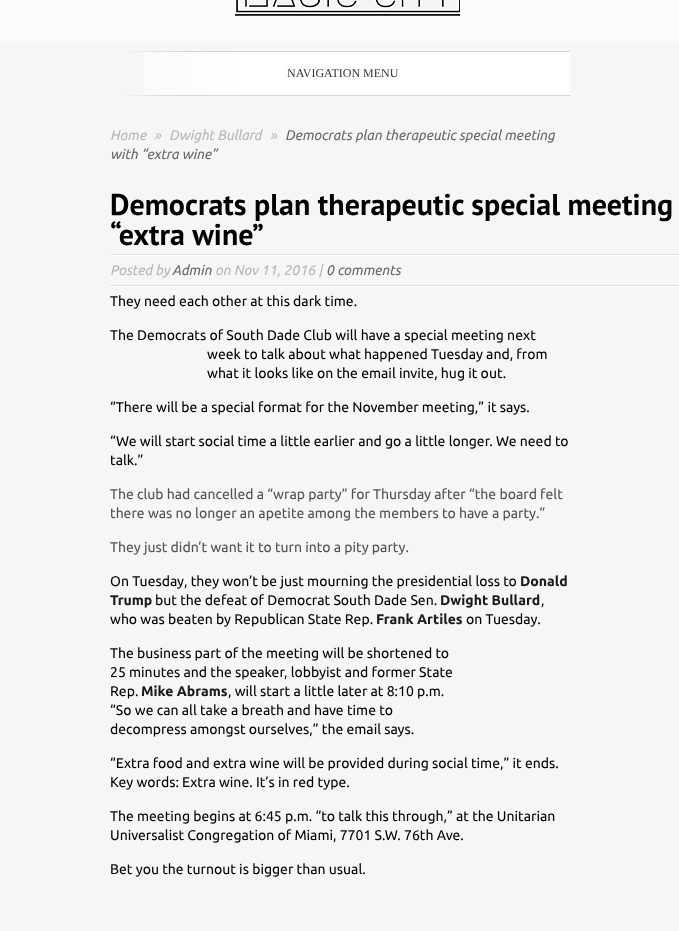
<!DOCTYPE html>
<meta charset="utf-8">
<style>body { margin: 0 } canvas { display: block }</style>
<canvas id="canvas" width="679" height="931"></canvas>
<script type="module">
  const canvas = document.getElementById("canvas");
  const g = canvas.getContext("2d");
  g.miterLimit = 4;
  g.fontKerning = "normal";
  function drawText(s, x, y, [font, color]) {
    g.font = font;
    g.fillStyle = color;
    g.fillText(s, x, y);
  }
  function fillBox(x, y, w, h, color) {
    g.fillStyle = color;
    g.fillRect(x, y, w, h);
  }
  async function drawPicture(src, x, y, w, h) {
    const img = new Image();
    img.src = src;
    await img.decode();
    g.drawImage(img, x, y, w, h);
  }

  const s1 = ["12px Liberation Serif", "#333333"];
  const s2 = ["italic 14px Ubuntu", "#B6B6B6"];
  const s3 = ["italic 14px Ubuntu", "#686868"];
  const s4 = ["bold 30px PT Sans", "#000000"];
  const s5 = ["14px Ubuntu", "#000000"];
  const s6 = ["14px Ubuntu", "#525252"];
  const s7 = ["bold 14px Ubuntu", "#1C1C1C"];

  fillBox(0, 0, 679, 931, "#F6F6F6");
  fillBox(0, 0, 679, 41, "#FBFBFB");
  await drawPicture("pic1.png", 235, 0, 225, 16);
  await drawPicture("pic2.png", 144, 52, 426, 43);
  await drawPicture("pic3.png", 127, 51, 443, 1);
  drawText("NAVIGATION MENU", 287, 77, s1);
  await drawPicture("pic4.png", 124, 95, 446, 1);
  drawText("Home", 110, 140, s2);
  drawText("»", 154, 140, s2);
  drawText("Dwight Bullard", 169, 140, s2);
  drawText("»", 270, 140, s2);
  drawText("Democrats plan therapeutic special meeting", 285, 140, s3);
  drawText("with “extra wine”", 110, 159, s3);
  drawText("Democrats plan therapeutic special meeting", 110, 215, s4);
  drawText("“extra wine”", 110, 245, s4);
  await drawPicture("pic5.png", 110, 254, 569, 2);
  drawText("Posted by", 110, 275, s2);
  drawText("Admin", 172, 275, s3);
  drawText("on Nov 11, 2016 |", 215, 275, s2);
  drawText("0 comments", 326, 275, s3);
  await drawPicture("pic5.png", 110, 285, 569, 2);
  drawText("They need each other at this dark time.", 110, 306, s5);
  drawText("The Democrats of South Dade Club will have a special meeting next", 110, 340, s5);
  drawText("week to talk about what happened Tuesday and, from", 207, 359, s5);
  drawText("what it looks like on the email invite, hug it out.", 207, 378, s5);
  drawText("“There will be a special format for the November meeting,” it says.", 110, 412, s5);
  drawText("“We will start social time a little earlier and go a little longer. We need to", 110, 446, s5);
  drawText("talk.”", 110, 465, s5);
  drawText("The club had cancelled a “wrap party” for Thursday after “the board felt", 110, 499, s6);
  drawText("there was no longer an apetite among the members to have a party.”", 110, 518, s6);
  drawText("They just didn’t want it to turn into a pity party.", 110, 552, s6);
  drawText("On Tuesday, they won’t be just mourning the presidential loss to", 110, 586, s5);
  drawText("Donald", 520, 586, s7);
  drawText("Trump", 110, 605, s7);
  drawText("but the defeat of Democrat South Dade Sen.", 155, 605, s5);
  drawText("Dwight Bullard", 440, 605, s7);
  drawText(",", 541, 605, s5);
  drawText("who was beaten by Republican State Rep.", 110, 624, s5);
  drawText("Frank Artiles", 376, 624, s7);
  drawText("on Tuesday.", 466, 624, s5);
  drawText("The business part of the meeting will be shortened to", 110, 658, s5);
  drawText("25 minutes and the speaker, lobbyist and former State", 110, 677, s5);
  drawText("Rep.", 110, 696, s5);
  drawText("Mike Abrams", 141, 696, s7);
  drawText(", will start a little later at 8:10 p.m.", 228, 696, s5);
  drawText("“So we can all take a breath and have time to", 110, 715, s5);
  drawText("decompress amongst ourselves,” the email says.", 110, 734, s5);
  drawText("“Extra food and extra wine will be provided during social time,” it ends.", 110, 768, s5);
  drawText("Key words: Extra wine. It’s in red type.", 110, 787, s5);
  drawText("The meeting begins at 6:45 p.m. “to talk this through,” at the Unitarian", 110, 821, s5);
  drawText("Universalist Congregation of Miami, 7701 S.W. 76th Ave.", 110, 840, s5);
  drawText("Bet you the turnout is bigger than usual.", 110, 874, s5);
</script>
